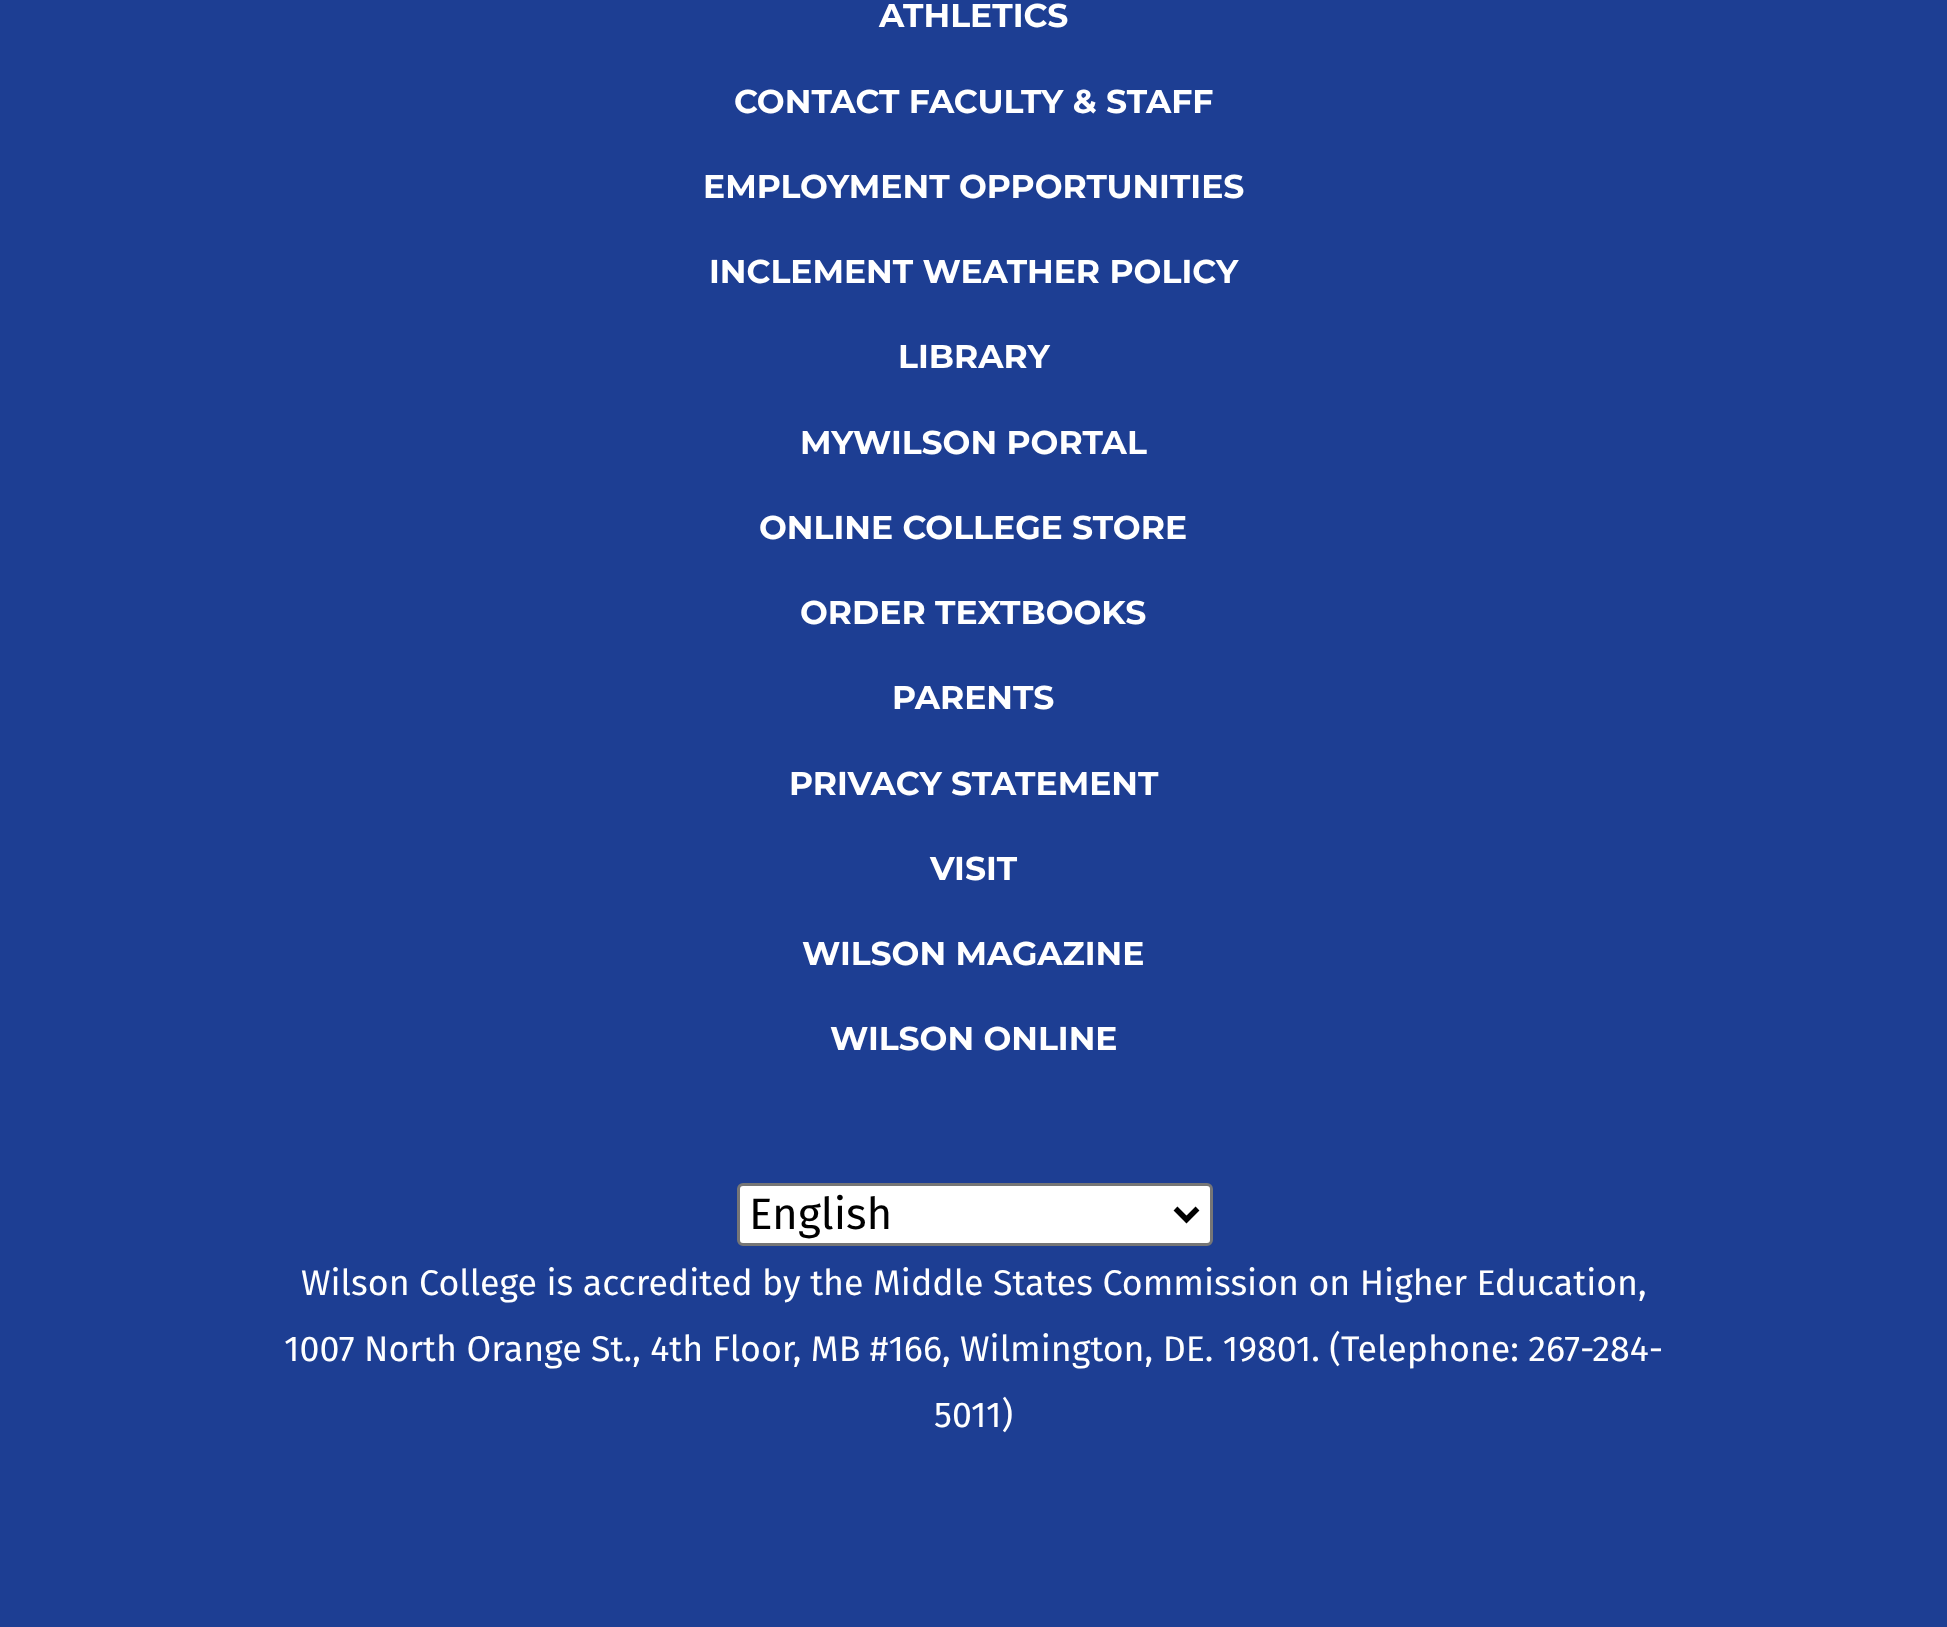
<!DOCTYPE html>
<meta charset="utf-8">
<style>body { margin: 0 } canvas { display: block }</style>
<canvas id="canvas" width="1947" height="1627"></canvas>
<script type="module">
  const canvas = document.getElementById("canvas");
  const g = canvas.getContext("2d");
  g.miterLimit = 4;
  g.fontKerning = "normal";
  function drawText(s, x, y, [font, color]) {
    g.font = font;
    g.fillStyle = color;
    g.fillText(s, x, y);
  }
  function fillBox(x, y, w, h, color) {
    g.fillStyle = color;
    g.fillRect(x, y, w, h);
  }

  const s1 = ["bold 33px Montserrat", "#FFFFFF"];
  const s2 = ["44px Fira Sans", "#000000"];
  const s3 = ["35.75px Fira Sans", "#FFFFFF"];

  fillBox(0, 0, 1947, 1627, "#1D3E93");
  drawText("ATHLETICS", 879, 27, s1);
  drawText("CONTACT FACULTY & STAFF", 734, 113, s1);
  drawText("EMPLOYMENT OPPORTUNITIES", 703, 198, s1);
  drawText("INCLEMENT WEATHER POLICY", 709, 283, s1);
  drawText("LIBRARY", 898, 368, s1);
  drawText("MYWILSON PORTAL", 800, 454, s1);
  drawText("ONLINE COLLEGE STORE", 759, 539, s1);
  drawText("ORDER TEXTBOOKS", 800, 624, s1);
  drawText("PARENTS", 892, 709, s1);
  drawText("PRIVACY STATEMENT", 789, 795, s1);
  drawText("VISIT", 930, 880, s1);
  drawText("WILSON MAGAZINE", 802, 965, s1);
  drawText("WILSON ONLINE", 830, 1050, s1);
  g.beginPath();
  g.roundRect(738.5, 1184.5, 473, 60, 4.5);
  g.fill();
  g.strokeStyle = "#767676";
  g.lineWidth = 3;
  g.stroke();
  g.beginPath();
  g.moveTo(1175.5, 1208.5);
  g.lineTo(1186.5, 1219.5);
  g.lineTo(1197.5, 1208.5);
  g.strokeStyle = "#000000";
  g.lineWidth = 5.5;
  g.stroke();
  drawText("English", 749, 1229, s2);
  drawText("Wilson College is accredited by the Middle States Commission on Higher Education,", 301, 1295, s3);
  drawText("1007 North Orange St., 4th Floor, MB #166, Wilmington, DE. 19801. (Telephone: 267-284-", 284, 1361, s3);
  drawText("5011)", 934, 1427, s3);
</script>
